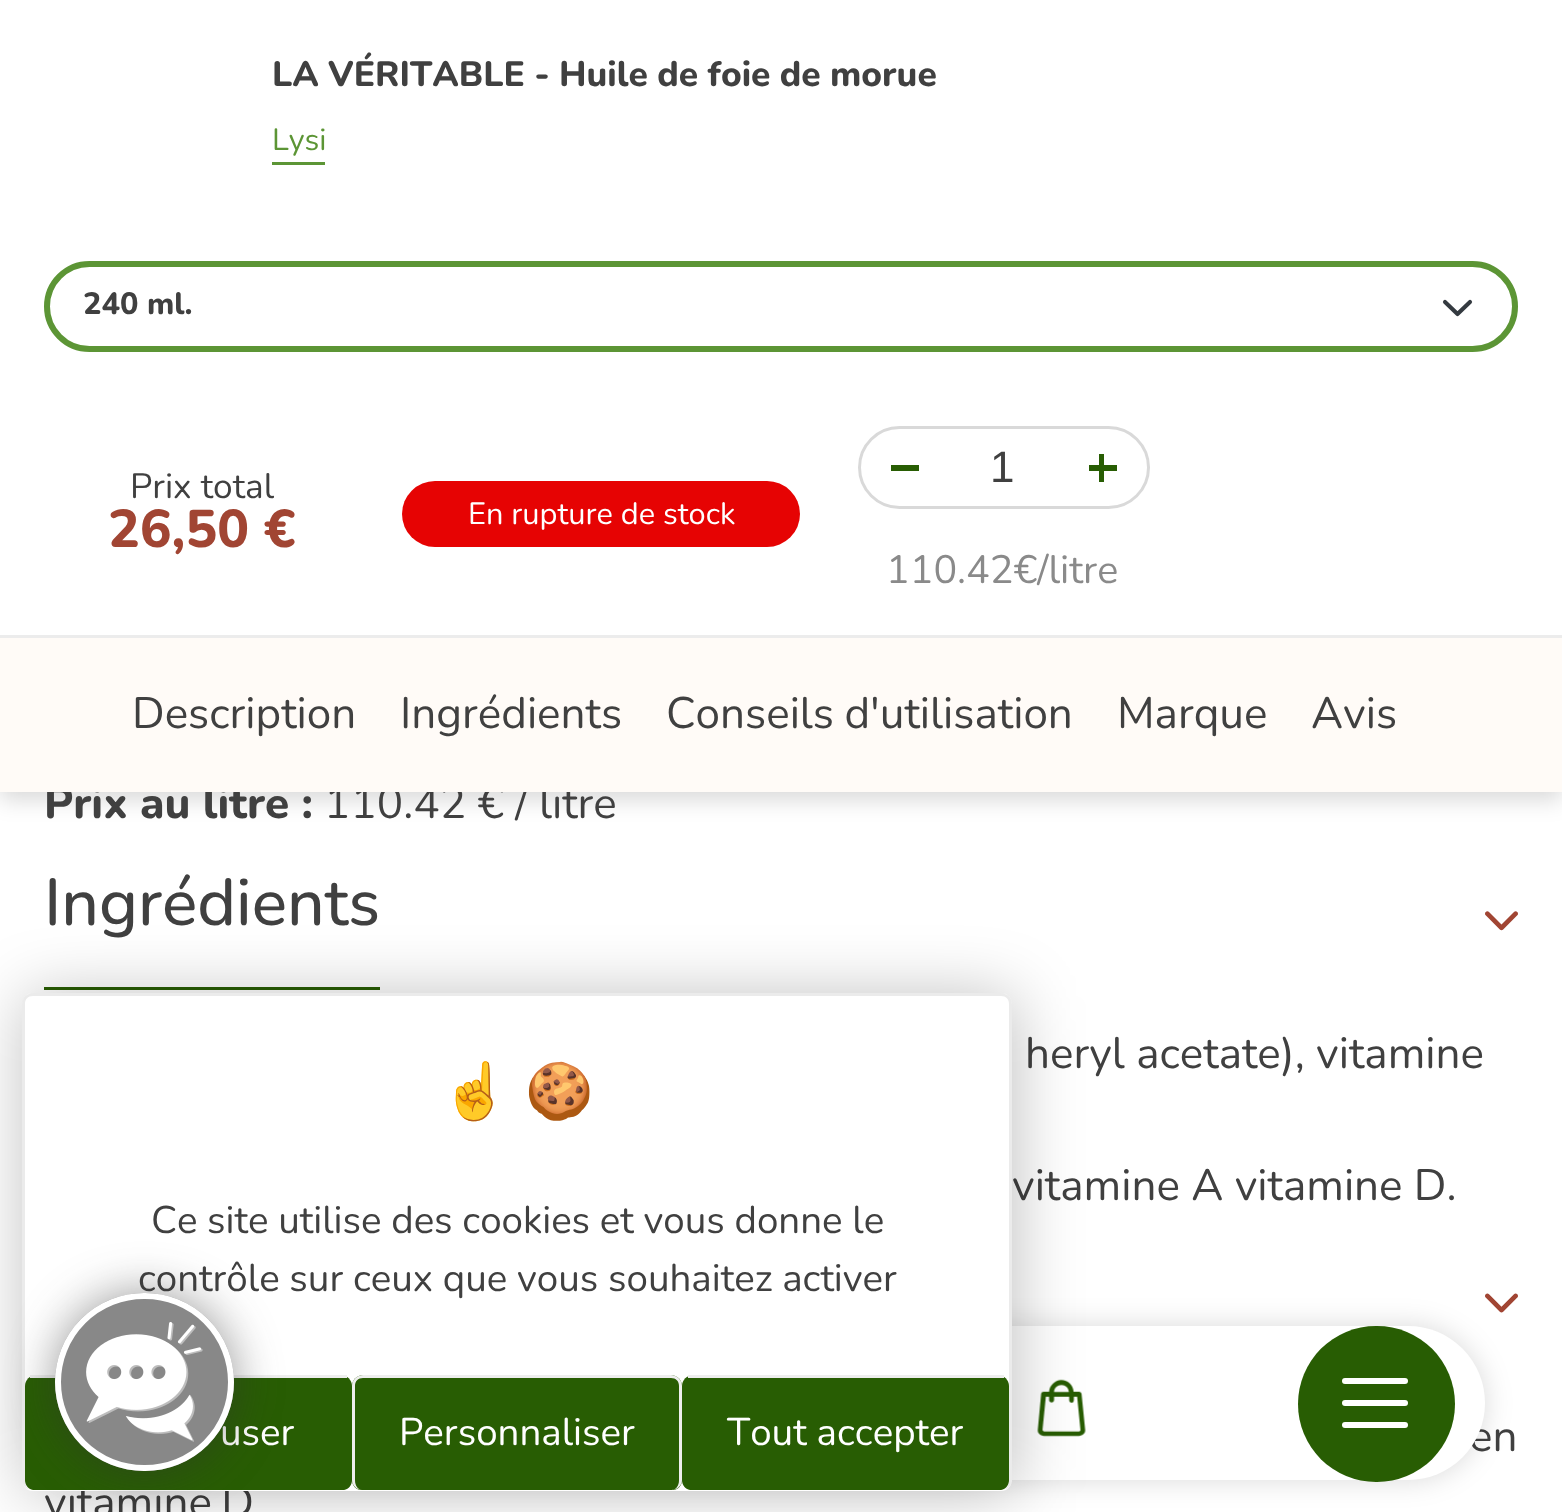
<!DOCTYPE html>
<meta charset="utf-8">
<style>body { margin: 0 } canvas { display: block }</style>
<canvas id="canvas" width="1562" height="1512"></canvas>
<script type="module">
  const canvas = document.getElementById("canvas");
  const g = canvas.getContext("2d");
  g.miterLimit = 4;
  g.fontKerning = "none";
  function drawText(s, x, y, [font, color]) {
    g.font = font;
    g.fillStyle = color;
    g.fillText(s, x, y);
  }
  function fillBox(x, y, w, h, color) {
    g.fillStyle = color;
    g.fillRect(x, y, w, h);
  }
  function fillRounded(x, y, w, h, r, color) {
    g.fillStyle = color;
    g.beginPath();
    g.roundRect(x, y, w, h, r);
    g.fill();
  }
  async function drawPicture(src, x, y, w, h) {
    const img = new Image();
    img.src = src;
    await img.decode();
    g.drawImage(img, x, y, w, h);
  }

  const s1 = ["800 35.25px Nunito", "#404040"];
  const s2 = ["30.75px Nunito", "#5C9535"];
  const s3 = ["800 30.75px Nunito", "#404040"];
  const s4 = ["35.25px Nunito", "#404040"];
  const s5 = ["800 53px Nunito", "#A14533"];
  const s6 = ["30.75px Nunito", "#FFFFFF"];
  const s7 = ["44px Liberation Sans", "#404040"];
  const s8 = ["39.5px Nunito", "#8A8A8A"];
  const s9 = ["800 44px Nunito", "#404040"];
  const s10 = ["44px Nunito", "#404040"];
  const s11 = ["500 66px Nunito", "#404040"];
  const s12 = ["bold 55px Noto Color Emoji", "#333333"];
  const s13 = ["38.5px Nunito", "#404040"];
  const s14 = ["38.5px Nunito", "#FFFFFF"];

  fillBox(0, 0, 1562, 1512, "#FFFFFF");
  g.fillStyle = "rgba(0, 0, 0, 0.15)";
  g.filter = "blur(11px)";
  g.beginPath();
  g.rect(0, 8, 1562, 792);
  g.fill();
  g.filter = "none";
  fillBox(0, 0, 1562, 635, "#FFFFFF");
  g.wordSpacing = "-0.5px";
  drawText("LA VÉRITABLE - Huile de foie de morue", 272, 86, s1);
  g.wordSpacing = "0px";
  drawText("Lysi", 272, 150, s2);
  fillBox(272, 162, 53, 3, "#5C9535");
  g.beginPath();
  g.moveTo(1445, 302);
  g.lineTo(1457.5, 314);
  g.lineTo(1470, 302);
  g.strokeStyle = "#343A40";
  g.lineWidth = 4.1;
  g.lineCap = "round";
  g.lineJoin = "round";
  g.stroke();
  g.beginPath();
  g.roundRect(47, 264, 1468, 85, 42.5);
  g.strokeStyle = "#5C9535";
  g.lineWidth = 6;
  g.lineJoin = "miter";
  g.stroke();
  drawText("240 ml.", 83, 314, s3);
  drawText("Prix total", 130, 498, s4);
  drawText("26,50 €", 108, 547, s5);
  fillRounded(402, 481, 398, 66, 33, "#E60303");
  drawText("En rupture de stock", 468, 524, s6);
  g.beginPath();
  g.roundRect(859.5, 427.5, 289, 80, 40);
  g.strokeStyle = "#D9D9D9";
  g.lineWidth = 3;
  g.stroke();
  fillBox(891, 465, 28, 6, "#285D03");
  drawText("1", 990, 482, s7);
  fillBox(1089, 465, 28, 6, "#285D03");
  fillBox(1099, 454, 5, 28, "#285D03");
  drawText("110.42€/litre", 886, 583, s8);
  drawText("Prix au litre :", 44, 818, s9);
  drawText("110.42 € / litre", 324, 818, s10);
  fillBox(0, 638, 1562, 154, "#FFFBF7");
  fillBox(0, 635, 1562, 3, "#ECECEC");
  drawText("Description", 132, 728, s10);
  drawText("Ingrédients", 400, 728, s10);
  g.wordSpacing = "-1px";
  drawText("Conseils d'utilisation", 666, 728, s10);
  g.wordSpacing = "0px";
  drawText("Marque", 1117, 728, s10);
  drawText("Avis", 1311, 728, s10);
  fillBox(44, 987, 336, 3, "#285D03");
  drawText("Ingrédients", 44, 925, s11);
  await drawPicture("pic1.png", 1485, 911, 33, 20);
  drawText("heryl acetate), vitamine", 1025, 1068, s10);
  drawText("vitamine A vitamine D.", 1012, 1200, s10);
  await drawPicture("pic2.png", 1485, 1293, 33, 20);
  drawText("en", 1469, 1451, s10);
  g.wordSpacing = "-2px";
  drawText("vitamine D", 44, 1517, s10);
  g.fillStyle = "rgba(0, 0, 0, 0.15)";
  g.filter = "blur(14px)";
  g.beginPath();
  g.roundRect(77, 1326, 1408, 154, 77);
  g.fill();
  g.filter = "none";
  fillRounded(77, 1326, 1408, 154, 77, "#FFFFFF");
  await drawPicture("pic3.png", 1037, 1379, 49, 58);
  fillRounded(1298, 1326, 157, 156, 78, "#285D03");
  fillRounded(1342, 1378, 66, 6, 3, "#FFFFFF");
  fillRounded(1342, 1400, 66, 6, 3, "#FFFFFF");
  fillRounded(1342, 1422, 66, 6, 3, "#FFFFFF");
  g.fillStyle = "rgba(0, 0, 0, 0.25)";
  g.filter = "blur(33px)";
  g.beginPath();
  g.roundRect(25, 996, 990, 497, 11);
  g.fill();
  g.filter = "none";
  fillRounded(22, 993, 990, 498, 11, "#FFFFFF");
  g.fillStyle = "rgba(0, 0, 0, 0.08)";
  g.beginPath();
  g.moveTo(33, 993);
  g.lineTo(1001, 993);
  g.bezierCurveTo(1007, 993, 1012, 998, 1012, 1004);
  g.lineTo(1012, 1480);
  g.bezierCurveTo(1012, 1486, 1007, 1490, 1001, 1490);
  g.lineTo(33, 1490);
  g.bezierCurveTo(27, 1490, 22, 1486, 22, 1480);
  g.lineTo(22, 1004);
  g.bezierCurveTo(22, 998, 27, 993, 33, 993);
  g.closePath();
  g.moveTo(33, 996);
  g.lineTo(1001, 996);
  g.bezierCurveTo(1006, 996, 1009, 999, 1009, 1004);
  g.lineTo(1009, 1480);
  g.bezierCurveTo(1009, 1486, 1006, 1490, 1001, 1490);
  g.lineTo(33, 1490);
  g.bezierCurveTo(28, 1490, 25, 1486, 25, 1480);
  g.lineTo(25, 1004);
  g.bezierCurveTo(25, 999, 28, 996, 33, 996);
  g.closePath();
  g.fill("evenodd");
  g.wordSpacing = "0px";
  drawText("☝️", 441, 1110, s12);
  drawText("🍪", 525, 1110, s12);
  g.wordSpacing = "-0.25px";
  drawText("Ce site utilise des cookies et vous donne le", 151, 1233, s13);
  drawText("contrôle sur ceux que vous souhaitez activer", 138, 1291, s13);
  g.fillStyle = "#285D03";
  g.beginPath();
  g.moveTo(36, 1375);
  g.lineTo(341, 1375);
  g.bezierCurveTo(347, 1375, 352, 1380, 352, 1386);
  g.lineTo(352, 1480);
  g.bezierCurveTo(352, 1485, 349, 1489, 344, 1490);
  g.lineTo(33, 1490);
  g.bezierCurveTo(28, 1489, 25, 1485, 25, 1480);
  g.lineTo(25, 1386);
  g.bezierCurveTo(25, 1380, 30, 1375, 36, 1375);
  g.closePath();
  g.fill();
  fillBox(30, 1375, 317, 3, "#EEEEEE");
  g.wordSpacing = "0px";
  drawText("user", 220, 1445, s14);
  g.fillStyle = "#285D03";
  g.beginPath();
  g.moveTo(363, 1375);
  g.lineTo(671, 1375);
  g.bezierCurveTo(677, 1375, 682, 1380, 682, 1386);
  g.lineTo(682, 1480);
  g.bezierCurveTo(682, 1485, 679, 1489, 674, 1490);
  g.lineTo(360, 1490);
  g.bezierCurveTo(355, 1489, 352, 1485, 352, 1480);
  g.lineTo(352, 1386);
  g.bezierCurveTo(352, 1380, 357, 1375, 363, 1375);
  g.closePath();
  g.fill();
  g.fillStyle = "#EEEEEE";
  g.beginPath();
  g.moveTo(363, 1375);
  g.lineTo(671, 1375);
  g.bezierCurveTo(677, 1375, 682, 1380, 682, 1386);
  g.lineTo(682, 1480);
  g.bezierCurveTo(682, 1486, 677, 1490, 671, 1490);
  g.lineTo(363, 1490);
  g.bezierCurveTo(357, 1490, 352, 1486, 352, 1480);
  g.lineTo(352, 1386);
  g.bezierCurveTo(352, 1380, 357, 1375, 363, 1375);
  g.closePath();
  g.moveTo(363, 1378);
  g.lineTo(671, 1378);
  g.bezierCurveTo(676, 1378, 679, 1381, 679, 1386);
  g.lineTo(679, 1480);
  g.bezierCurveTo(679, 1486, 676, 1490, 671, 1490);
  g.lineTo(363, 1490);
  g.bezierCurveTo(358, 1490, 355, 1486, 355, 1480);
  g.lineTo(355, 1386);
  g.bezierCurveTo(355, 1381, 358, 1378, 363, 1378);
  g.closePath();
  g.fill("evenodd");
  drawText("Personnaliser", 399, 1445, s14);
  g.fillStyle = "#285D03";
  g.beginPath();
  g.moveTo(693, 1375);
  g.lineTo(998, 1375);
  g.bezierCurveTo(1004, 1375, 1009, 1380, 1009, 1386);
  g.lineTo(1009, 1480);
  g.bezierCurveTo(1009, 1485, 1006, 1489, 1001, 1490);
  g.lineTo(690, 1490);
  g.bezierCurveTo(685, 1489, 682, 1485, 682, 1480);
  g.lineTo(682, 1386);
  g.bezierCurveTo(682, 1380, 687, 1375, 693, 1375);
  g.closePath();
  g.fill();
  fillBox(688, 1375, 316, 3, "#EEEEEE");
  drawText("Tout accepter", 727, 1445, s14);
  g.fillStyle = "rgba(50, 50, 50, 0.5)";
  g.filter = "blur(23.5px)";
  g.beginPath();
  g.roundRect(55, 1293, 179, 178, 89);
  g.fill();
  g.filter = "none";
  fillRounded(55, 1293, 179, 178, 89, "#888888");
  await drawPicture("pic4.png", 86, 1322, 117, 120);
  g.beginPath();
  g.roundRect(58, 1296, 173, 172, 86);
  g.strokeStyle = "#FFFFFF";
  g.lineWidth = 6;
  g.stroke();
</script>
